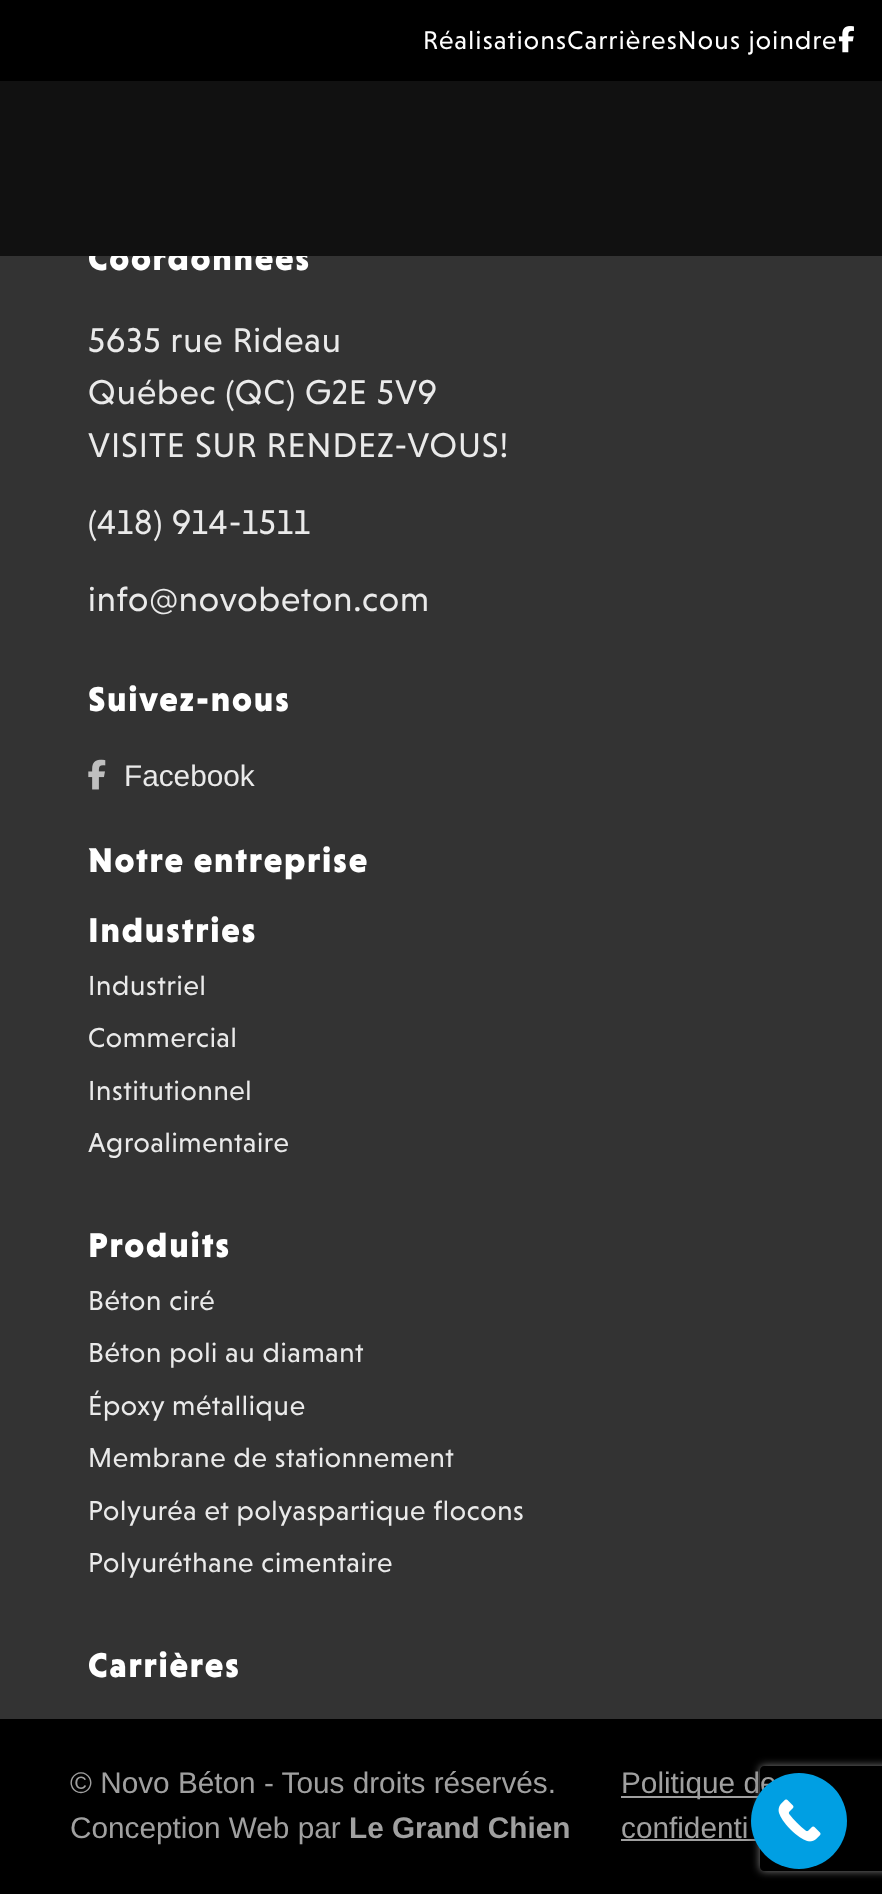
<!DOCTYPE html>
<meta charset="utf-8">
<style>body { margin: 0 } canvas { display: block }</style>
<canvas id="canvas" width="882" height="1894"></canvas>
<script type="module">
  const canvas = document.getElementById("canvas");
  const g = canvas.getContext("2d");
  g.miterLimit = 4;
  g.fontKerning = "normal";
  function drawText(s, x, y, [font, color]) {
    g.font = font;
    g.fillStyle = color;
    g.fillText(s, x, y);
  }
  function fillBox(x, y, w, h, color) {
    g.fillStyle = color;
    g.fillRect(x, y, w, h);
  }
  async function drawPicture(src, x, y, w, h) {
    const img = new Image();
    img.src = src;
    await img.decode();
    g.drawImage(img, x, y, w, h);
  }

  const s1 = ["26.25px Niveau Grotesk", "#FFFFFF"];
  const s2 = ["900 35px Niveau Grotesk", "#FFFFFF"];
  const s3 = ["35px Niveau Grotesk", "#EAEAEA"];
  const s4 = ["29.75px Liberation Sans", "#EAEAEA"];
  const s5 = ["28px Niveau Grotesk", "#EAEAEA"];
  const s6 = ["29.75px Liberation Sans", "#A0A0A0"];
  const s7 = ["bold 29.75px Liberation Sans", "#A0A0A0"];

  fillBox(0, 0, 882, 1894, "#333333");
  fillBox(0, 0, 882, 81, "#000000");
  g.letterSpacing = "1.3px";
  drawText("RéalisationsCarrièresNous joindre", 423, 49, s1);
  await drawPicture("pic1.png", 838, 26, 16, 27);
  g.letterSpacing = "1.75px";
  drawText("Coordonnées", 88, 270, s2);
  fillBox(0, 81, 882, 175, "#111111");
  g.letterSpacing = "0.9px";
  drawText("5635 rue Rideau", 88, 352, s3);
  drawText("Québec (QC) G2E 5V9", 88, 404, s3);
  drawText("VISITE SUR RENDEZ-VOUS!", 88, 457, s3);
  drawText("(418) 914-1511", 88, 534, s3);
  drawText("info@novobeton.com", 88, 611, s3);
  g.letterSpacing = "1.75px";
  drawText("Suivez-nous", 88, 711, s2);
  await drawPicture("pic2.png", 88, 759, 18, 31);
  g.letterSpacing = "0px";
  drawText("Facebook", 124, 786, s4);
  g.letterSpacing = "1.75px";
  drawText("Notre entreprise", 88, 872, s2);
  drawText("Industries", 88, 942, s2);
  g.letterSpacing = "0.7px";
  drawText("Industriel", 88, 995, s5);
  drawText("Commercial", 88, 1047, s5);
  drawText("Institutionnel", 88, 1100, s5);
  drawText("Agroalimentaire", 88, 1152, s5);
  g.letterSpacing = "1.75px";
  drawText("Produits", 88, 1257, s2);
  g.letterSpacing = "0.7px";
  drawText("Béton ciré", 88, 1310, s5);
  drawText("Béton poli au diamant", 88, 1362, s5);
  drawText("Époxy métallique", 88, 1415, s5);
  drawText("Membrane de stationnement", 88, 1467, s5);
  drawText("Polyuréa et polyaspartique flocons", 88, 1520, s5);
  drawText("Polyuréthane cimentaire", 88, 1572, s5);
  g.letterSpacing = "1.75px";
  drawText("Carrières", 88, 1677, s2);
  fillBox(0, 1719, 882, 175, "#000000");
  g.letterSpacing = "0px";
  drawText("© Novo Béton - Tous droits réservés.", 70, 1793, s6);
  drawText("Conception Web par", 70, 1838, s6);
  drawText("Le Grand Chien", 349, 1838, s7);
  fillBox(621, 1796, 137, 2, "#A0A0A0");
  drawText("Politique de", 621, 1793, s6);
  drawText("confidenti", 621, 1838, s6);
  fillBox(621, 1839, 135, 2, "#A0A0A0");
  g.fillStyle = "rgba(0, 0, 0, 0.3)";
  g.filter = "blur(5px)";
  g.beginPath();
  g.roundRect(751, 1778, 96, 96, 48);
  g.fill();
  g.filter = "none";
  g.save();
  g.beginPath();
  g.moveTo(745, 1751);
  g.lineTo(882, 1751);
  g.lineTo(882, 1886);
  g.lineTo(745, 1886);
  g.closePath();
  g.moveTo(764, 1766);
  g.lineTo(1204, 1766);
  g.bezierCurveTo(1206, 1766, 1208, 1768, 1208, 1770);
  g.lineTo(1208, 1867);
  g.bezierCurveTo(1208, 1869, 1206, 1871, 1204, 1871);
  g.lineTo(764, 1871);
  g.bezierCurveTo(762, 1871, 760, 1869, 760, 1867);
  g.lineTo(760, 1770);
  g.bezierCurveTo(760, 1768, 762, 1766, 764, 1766);
  g.closePath();
  g.clip("evenodd");
  g.fillStyle = "#808080";
  g.filter = "blur(4.5px)";
  g.beginPath();
  g.roundRect(760, 1766, 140, 105, 4);
  g.fill();
  g.filter = "none";
  g.restore();
  g.fillStyle = "#009FE3";
  g.beginPath();
  g.arc(799, 1821, 48, 0, Math.PI * 2);
  g.fill();
  await drawPicture("pic3.png", 778, 1799, 43, 43);
</script>
